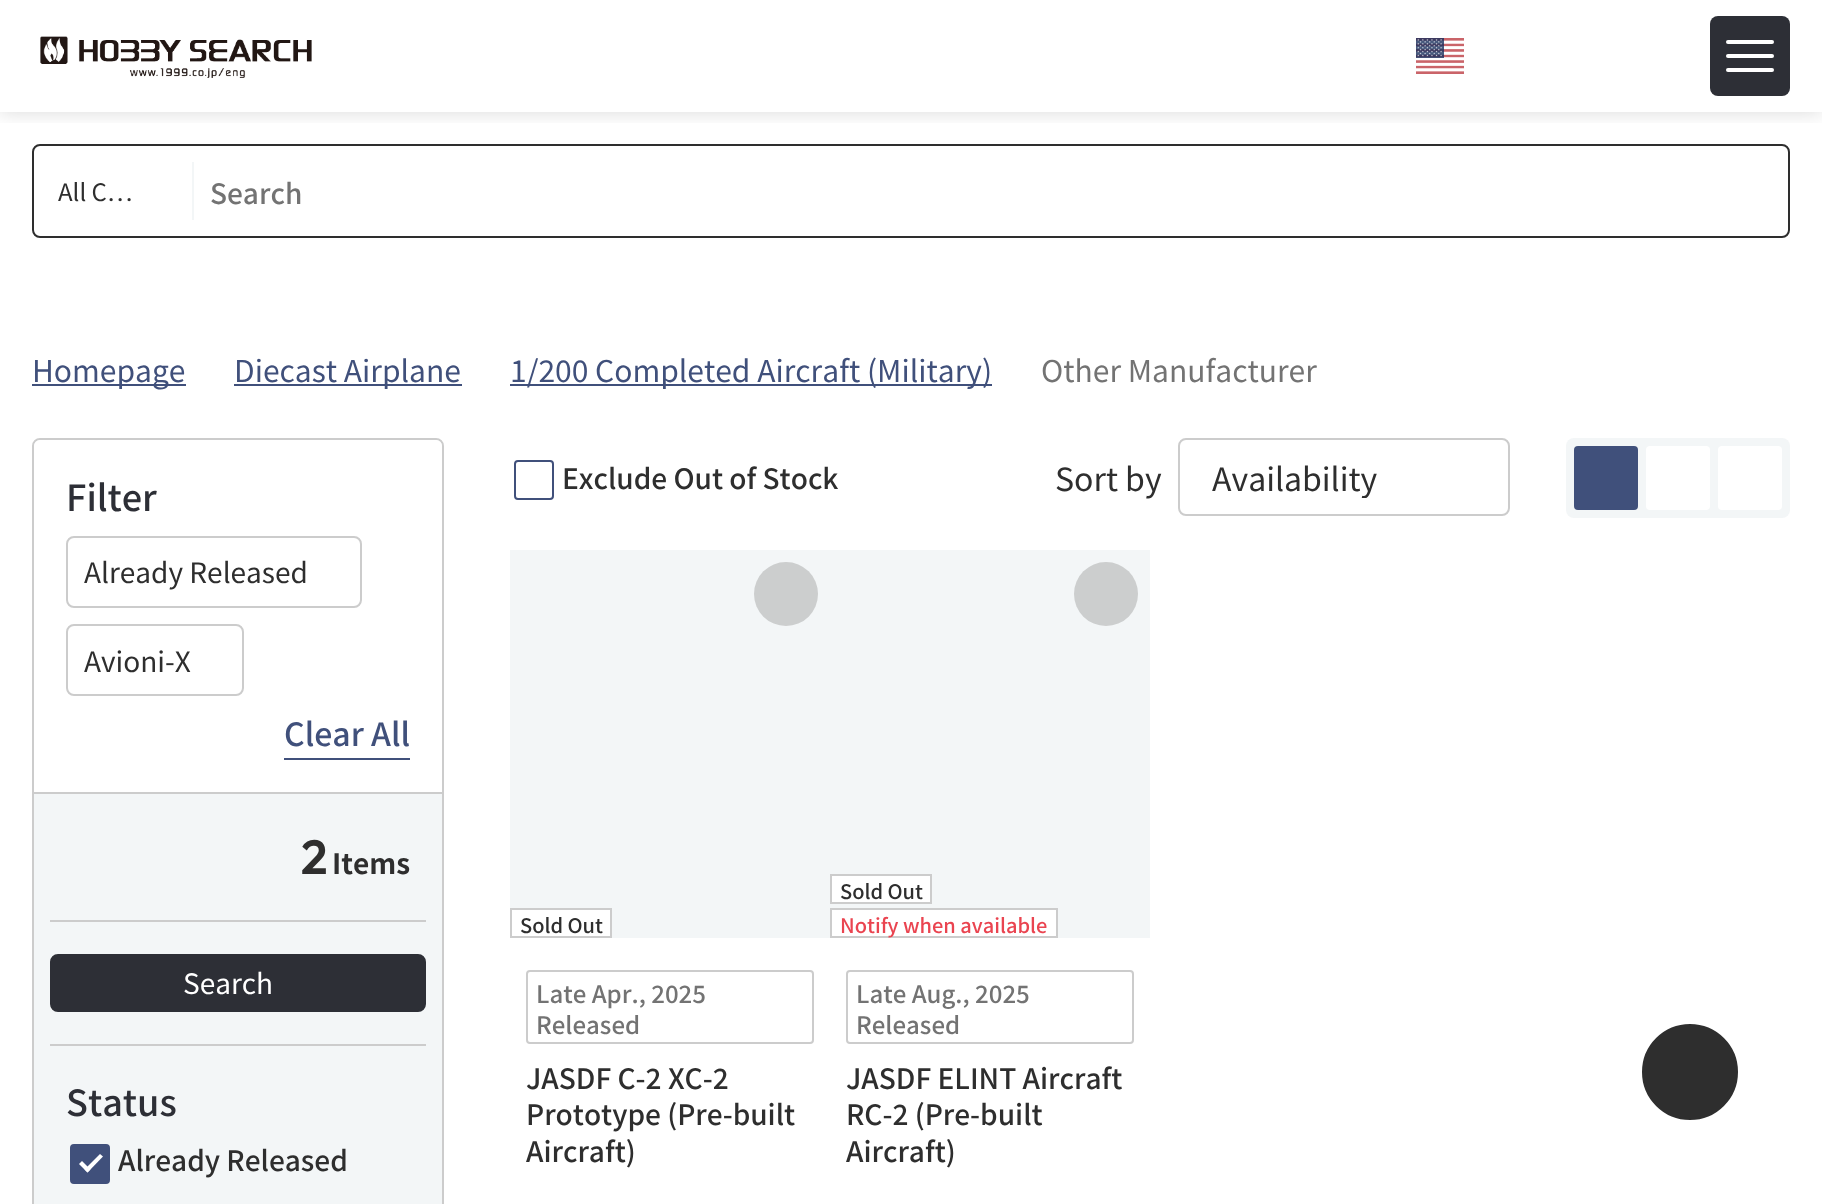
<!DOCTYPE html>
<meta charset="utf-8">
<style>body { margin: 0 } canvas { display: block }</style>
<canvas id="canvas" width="1822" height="1204"></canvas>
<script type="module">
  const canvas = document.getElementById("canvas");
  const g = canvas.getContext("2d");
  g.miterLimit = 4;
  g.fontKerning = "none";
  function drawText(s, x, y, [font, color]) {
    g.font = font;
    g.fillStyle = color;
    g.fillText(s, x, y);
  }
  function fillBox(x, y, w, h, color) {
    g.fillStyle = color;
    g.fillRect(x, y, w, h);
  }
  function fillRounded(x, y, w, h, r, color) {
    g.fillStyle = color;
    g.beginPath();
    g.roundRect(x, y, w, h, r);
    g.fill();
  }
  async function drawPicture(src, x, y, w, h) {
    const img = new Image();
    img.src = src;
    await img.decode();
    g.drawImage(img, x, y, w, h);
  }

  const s1 = ["24px Noto Sans JP", "#2E2E2E"];
  const s2 = ["500 28px Noto Sans JP", "#737373"];
  const s3 = ["30px Noto Sans JP", "#40507B"];
  const s4 = ["30px Noto Sans JP", "#737373"];
  const s5 = ["500 36px Noto Sans JP", "#2D2F36"];
  const s6 = ["28px Noto Sans JP", "#2E2E2E"];
  const s7 = ["500 32px Noto Sans JP", "#40507B"];
  const s8 = ["600 48px Outfit", "#2E2E2E"];
  const s9 = ["bold 28px Noto Sans JP", "#2E2E2E"];
  const s10 = ["28px Noto Sans JP", "#FFFFFF"];
  const s11 = ["500 28px Noto Sans JP", "#2E2E2E"];
  const s12 = ["32px Noto Sans JP", "#2E2E2E"];
  const s13 = ["500 20px Noto Sans JP", "#2E2E2E"];
  const s14 = ["500 24px Noto Sans JP", "#737373"];
  const s15 = ["500 20px Noto Sans JP", "#EA4450"];

  fillBox(0, 0, 1822, 1204, "#FFFFFF");
  g.save();
  g.beginPath();
  g.rect(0, 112, 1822, 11);
  g.clip();
  g.fillStyle = "rgba(0, 0, 0, 0.15)";
  g.filter = "blur(10px)";
  g.beginPath();
  g.rect(0, 0, 1822, 112);
  g.fill();
  g.filter = "none";
  g.restore();
  await drawPicture("pic1.png", 40, 36, 272, 42);
  await drawPicture("pic2.png", 1416, 38, 48, 36);
  fillRounded(1710, 16, 80, 80, 8, "#2D2F36");
  fillRounded(1726, 54, 48, 4, 2, "#FFFFFF");
  fillRounded(1726, 40, 48, 4, 2, "#FFFFFF");
  fillRounded(1726, 68, 48, 4, 2, "#FFFFFF");
  g.beginPath();
  g.roundRect(33, 145, 1756, 92, 7);
  g.strokeStyle = "#2E2E2E";
  g.lineWidth = 2;
  g.stroke();
  drawText("All C…", 58, 201, s1);
  fillBox(192, 162, 2, 58, "#F3F6F7");
  drawText("Search", 210, 204, s2);
  fillBox(32, 384, 154, 2, "#40507B");
  drawText("Homepage", 32, 382, s3);
  fillBox(234, 384, 228, 2, "#40507B");
  drawText("Diecast Airplane", 234, 382, s3);
  fillBox(510, 384, 482, 2, "#40507B");
  drawText("1/200 Completed Aircraft (Military)", 510, 382, s3);
  drawText("Other Manufacturer", 1041, 382, s4);
  g.fillStyle = "#F3F6F7";
  g.beginPath();
  g.roundRect(33, 439, 410, 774, 7);
  g.fill();
  g.strokeStyle = "#CCCCCC";
  g.stroke();
  g.fillStyle = "#FFFFFF";
  g.beginPath();
  g.roundRect(34, 440, 408, 352, [6, 6, 0, 0]);
  g.fill();
  fillBox(34, 792, 408, 2, "#CCCCCC");
  drawText("Filter", 66, 511, s5);
  g.beginPath();
  g.roundRect(67, 537, 294, 70, 7);
  g.stroke();
  drawText("Already Released", 84, 583, s6);
  g.beginPath();
  g.roundRect(67, 625, 176, 70, 7);
  g.stroke();
  drawText("Avioni-X", 84, 672, s6);
  fillBox(284, 758, 126, 2, "#40507B");
  drawText("Clear All", 284, 746, s7);
  drawText("2", 301, 874, s8);
  drawText("Items", 332, 874, s9);
  fillBox(50, 920, 376, 2, "#CCCCCC");
  g.fillStyle = "#2D2F36";
  g.beginPath();
  g.roundRect(51, 955, 374, 56, 7);
  g.fill();
  g.strokeStyle = "#2D2F36";
  g.stroke();
  drawText("Search", 183, 994, s10);
  fillBox(50, 1044, 376, 2, "#CCCCCC");
  drawText("Status", 66, 1116, s5);
  g.fillStyle = "#40507B";
  g.beginPath();
  g.roundRect(71, 1145, 38, 38, 3);
  g.fill();
  g.strokeStyle = "#40507B";
  g.stroke();
  g.fillStyle = "#FFFFFF";
  g.beginPath();
  g.moveTo(84.5, 1169.5);
  g.lineTo(100, 1154);
  g.lineTo(103, 1156.5);
  g.lineTo(87.5, 1172.5);
  g.closePath();
  g.fill();
  g.beginPath();
  g.moveTo(79, 1164);
  g.lineTo(82, 1161);
  g.lineTo(90.5, 1169.5);
  g.lineTo(87.5, 1172.5);
  g.closePath();
  g.fill();
  drawText("Already Released", 118, 1171, s11);
  g.beginPath();
  g.roundRect(515, 461, 38, 38, 3);
  g.stroke();
  drawText("Exclude Out of Stock", 562, 489, s11);
  drawText("Sort by", 1055, 491, s12);
  g.beginPath();
  g.roundRect(1179, 439, 330, 76, 7);
  g.strokeStyle = "#CCCCCC";
  g.stroke();
  g.save();
  g.beginPath();
  g.rect(1212, 456, 228, 42);
  g.clip();
  drawText("Availability", 1212, 491, s12);
  g.restore();
  fillRounded(1566, 438, 224, 80, 8, "#F3F6F7");
  fillRounded(1574, 446, 64, 64, 4, "#40507B");
  fillRounded(1646, 446, 64, 64, 4, "#FFFFFF");
  fillRounded(1718, 446, 64, 64, 4, "#FFFFFF");
  fillBox(510, 550, 640, 388, "#F3F6F7");
  g.fillStyle = "#CCCECE";
  g.beginPath();
  g.arc(786, 594, 32, 0, Math.PI * 2);
  g.fill();
  g.fillStyle = "#FFFFFF";
  g.beginPath();
  g.rect(511, 909, 100, 28);
  g.fill();
  g.stroke();
  drawText("Sold Out", 520, 933, s13);
  g.beginPath();
  g.roundRect(527, 971, 286, 72, 3);
  g.stroke();
  drawText("Late Apr., 2025", 536, 1003, s14);
  drawText("Released", 536, 1034, s14);
  drawText("JASDF C-2 XC-2", 526, 1089, s11);
  drawText("Prototype (Pre-built", 526, 1125, s11);
  drawText("Aircraft)", 526, 1162, s11);
  g.fillStyle = "#CCCECE";
  g.beginPath();
  g.arc(1106, 594, 32, 0, Math.PI * 2);
  g.fill();
  g.fillStyle = "#FFFFFF";
  g.beginPath();
  g.rect(831, 875, 100, 28);
  g.fill();
  g.stroke();
  drawText("Sold Out", 840, 899, s13);
  g.fillStyle = "#FFFFFF";
  g.beginPath();
  g.rect(831, 909, 226, 28);
  g.fill();
  g.stroke();
  drawText("Notify when available", 840, 933, s15);
  g.beginPath();
  g.roundRect(847, 971, 286, 72, 3);
  g.stroke();
  drawText("Late Aug., 2025", 856, 1003, s14);
  drawText("Released", 856, 1034, s14);
  drawText("JASDF ELINT Aircraft", 846, 1089, s11);
  drawText("RC-2 (Pre-built", 846, 1125, s11);
  drawText("Aircraft)", 846, 1162, s11);
  g.beginPath();
  g.arc(1690, 1072, 50, 0, Math.PI * 2);
  g.fill();
  g.strokeStyle = "#FFFFFF";
  g.lineWidth = 4;
  g.stroke();
</script>
